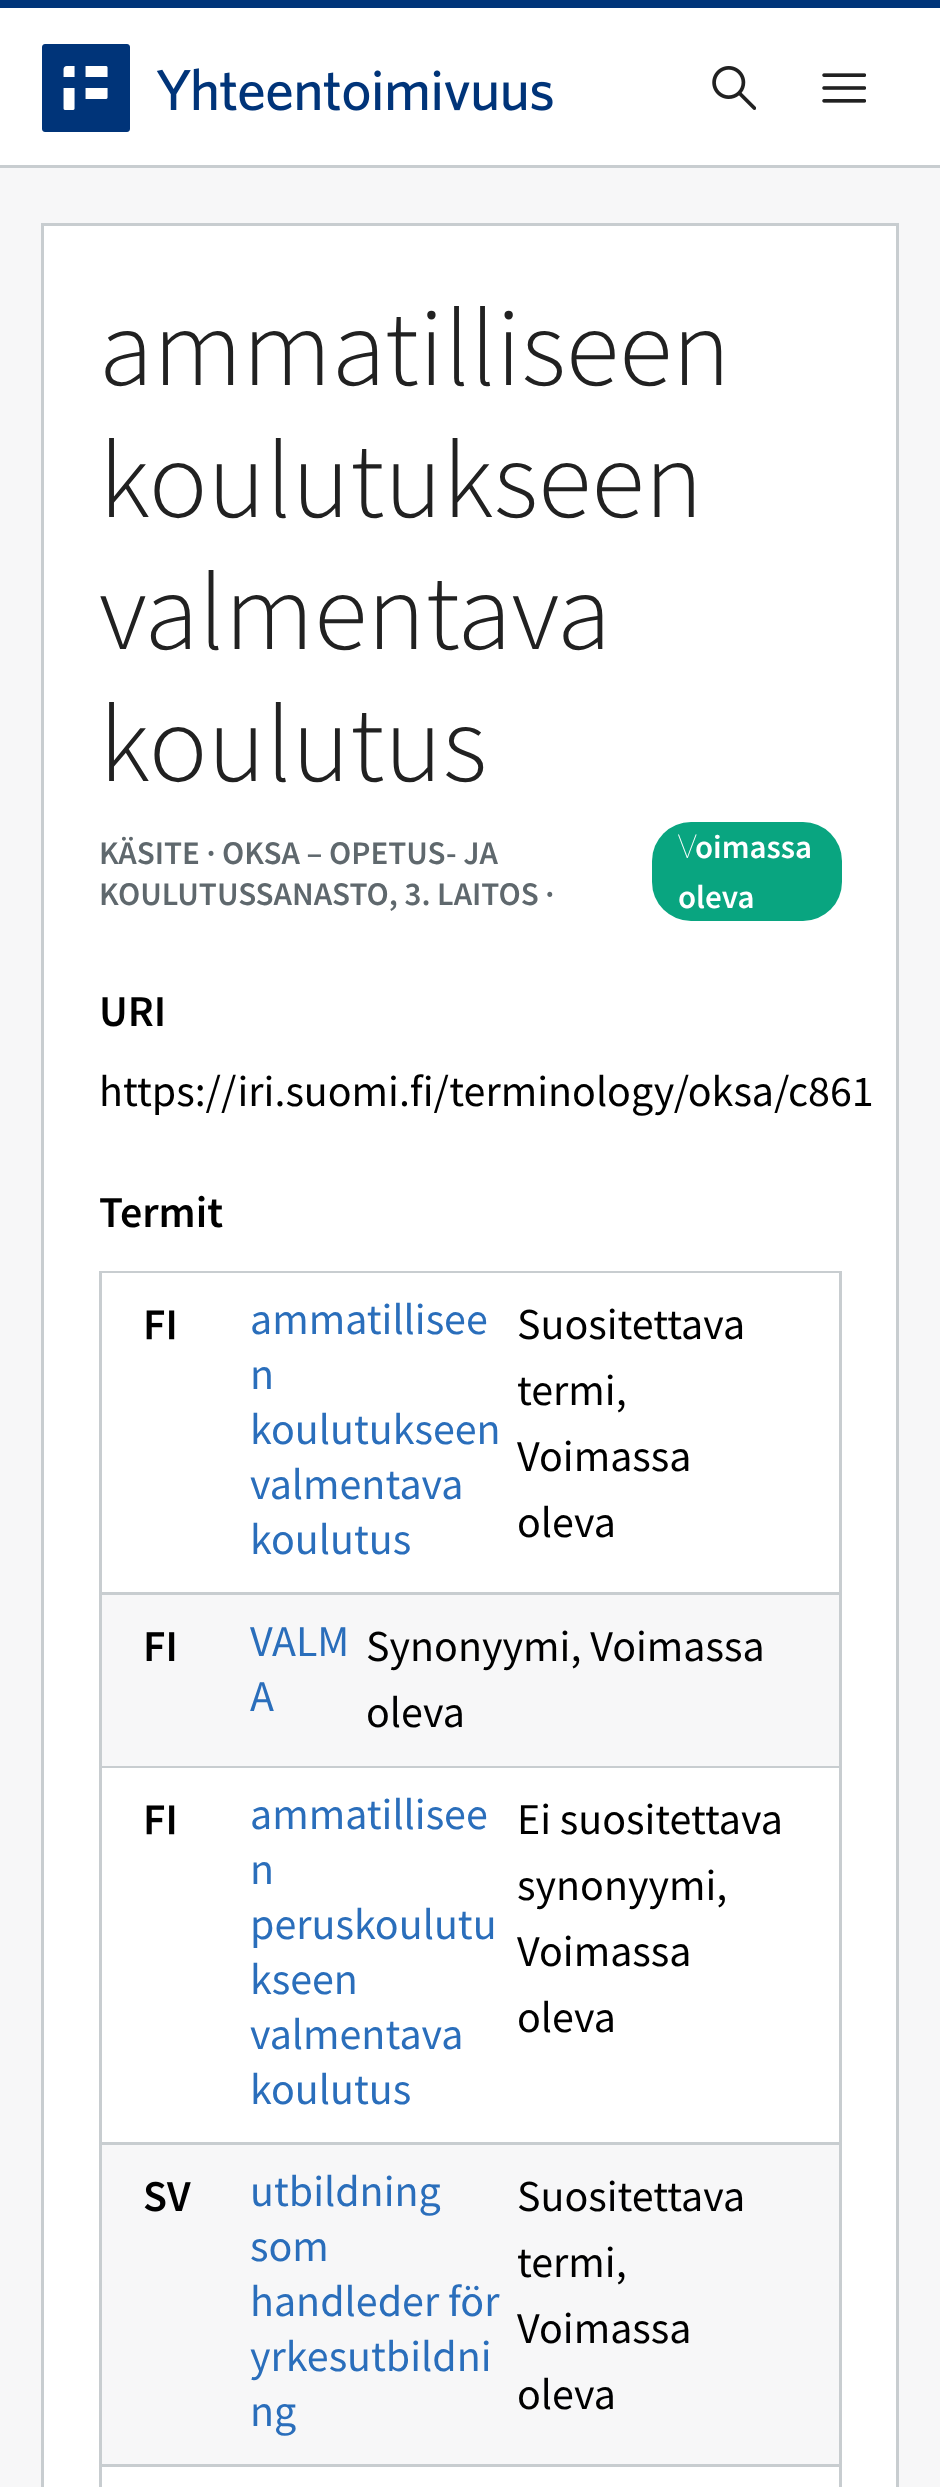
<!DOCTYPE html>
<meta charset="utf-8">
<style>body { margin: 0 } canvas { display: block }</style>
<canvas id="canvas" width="940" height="2487"></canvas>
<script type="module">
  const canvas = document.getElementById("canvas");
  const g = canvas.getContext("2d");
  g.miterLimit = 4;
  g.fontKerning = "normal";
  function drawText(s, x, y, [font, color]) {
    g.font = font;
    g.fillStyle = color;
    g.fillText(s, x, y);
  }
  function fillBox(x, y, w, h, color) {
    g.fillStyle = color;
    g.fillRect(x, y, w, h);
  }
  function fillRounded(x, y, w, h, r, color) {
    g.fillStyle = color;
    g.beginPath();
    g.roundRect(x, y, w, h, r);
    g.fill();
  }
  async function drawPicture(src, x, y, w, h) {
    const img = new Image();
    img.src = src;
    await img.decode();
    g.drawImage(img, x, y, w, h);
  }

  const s1 = ["300 110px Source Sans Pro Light", "#212121"];
  const s2 = ["600 33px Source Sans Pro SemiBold", "#5F686D"];
  const s3 = ["100 33px Noto Sans", "#FFFFFF"];
  const s4 = ["600 33px Source Sans Pro SemiBold", "#FFFFFF"];
  const s5 = ["600 44px Source Sans Pro SemiBold", "#000000"];
  const s6 = ["44px Source Sans Pro", "#000000"];
  const s7 = ["44px Source Sans Pro", "#2A6EBB"];

  fillBox(0, 0, 940, 2487, "#F7F7F8");
  fillBox(0, 8, 940, 157, "#FFFFFF");
  fillBox(0, 0, 940, 8, "#00357A");
  fillBox(0, 165, 940, 3, "#C8CDD0");
  await drawPicture("pic1.png", 42, 44, 511, 88);
  await drawPicture("pic2.png", 712, 66, 44, 44);
  await drawPicture("pic3.png", 822, 73, 44, 30);
  g.fillStyle = "#FFFFFF";
  g.beginPath();
  g.rect(42.5, 224.5, 855, 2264);
  g.fill();
  g.strokeStyle = "#C8CDD0";
  g.lineWidth = 3;
  g.stroke();
  drawText("ammatilliseen", 99, 385, s1);
  drawText("koulutukseen", 99, 517, s1);
  drawText("valmentava", 99, 649, s1);
  drawText("koulutus", 99, 781, s1);
  drawText("KÄSITE · OKSA – OPETUS- JA", 99, 864, s2);
  fillRounded(652, 822, 190, 99, 39, "#09A580");
  drawText("V", 678, 858, s3);
  drawText("oimassa", 695, 858, s4);
  drawText("oleva", 678, 908, s4);
  drawText("KOULUTUSSANASTO, 3. LAITOS ·", 99, 905, s2);
  drawText("URI", 99, 1026, s5);
  drawText("https://iri.suomi.fi/terminology/oksa/c861", 99, 1106, s6);
  drawText("Termit", 99, 1227, s5);
  g.strokeRect(100.5, 1272.5, 740, 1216);
  fillBox(102, 1273, 737, 1, "#FFFFFF");
  fillBox(102, 1592, 737, 3, "#C8CDD0");
  await drawPicture("pic4.png", 146, 1310, 29, 30);
  drawText("ammatillisee", 250, 1334, s7);
  drawText("n", 250, 1389, s7);
  drawText("koulutukseen", 250, 1444, s7);
  drawText("valmentava", 250, 1499, s7);
  drawText("koulutus", 250, 1554, s7);
  drawText("Suositettava", 517, 1339, s6);
  drawText("termi,", 517, 1405, s6);
  drawText("Voimassa", 517, 1471, s6);
  drawText("oleva", 517, 1537, s6);
  fillBox(102, 1595, 737, 171, "#F7F7F8");
  fillBox(102, 1766, 737, 2, "#C8CDD0");
  await drawPicture("pic5.png", 146, 1632, 29, 29);
  drawText("VALM", 250, 1656, s7);
  drawText("A", 250, 1711, s7);
  drawText("Synonyymi, Voimassa", 366, 1661, s6);
  drawText("oleva", 366, 1727, s6);
  fillBox(102, 2142, 737, 3, "#C8CDD0");
  await drawPicture("pic4.png", 146, 1805, 29, 30);
  drawText("ammatillisee", 250, 1829, s7);
  drawText("n", 250, 1884, s7);
  drawText("peruskoulutu", 250, 1939, s7);
  drawText("kseen", 250, 1994, s7);
  drawText("valmentava", 250, 2049, s7);
  drawText("koulutus", 250, 2104, s7);
  drawText("Ei suositettava", 517, 1834, s6);
  drawText("synonyymi,", 517, 1900, s6);
  drawText("Voimassa", 517, 1966, s6);
  drawText("oleva", 517, 2032, s6);
  fillBox(102, 2145, 737, 319, "#F7F7F8");
  fillBox(102, 2464, 737, 3, "#C8CDD0");
  await drawPicture("pic6.png", 144, 2181, 47, 31);
  drawText("utbildning", 250, 2206, s7);
  drawText("som", 250, 2261, s7);
  drawText("handleder för", 250, 2316, s7);
  drawText("yrkesutbildni", 250, 2371, s7);
  drawText("ng", 250, 2426, s7);
  drawText("Suositettava", 517, 2211, s6);
  drawText("termi,", 517, 2277, s6);
  drawText("Voimassa", 517, 2343, s6);
  drawText("oleva", 517, 2409, s6);
</script>
